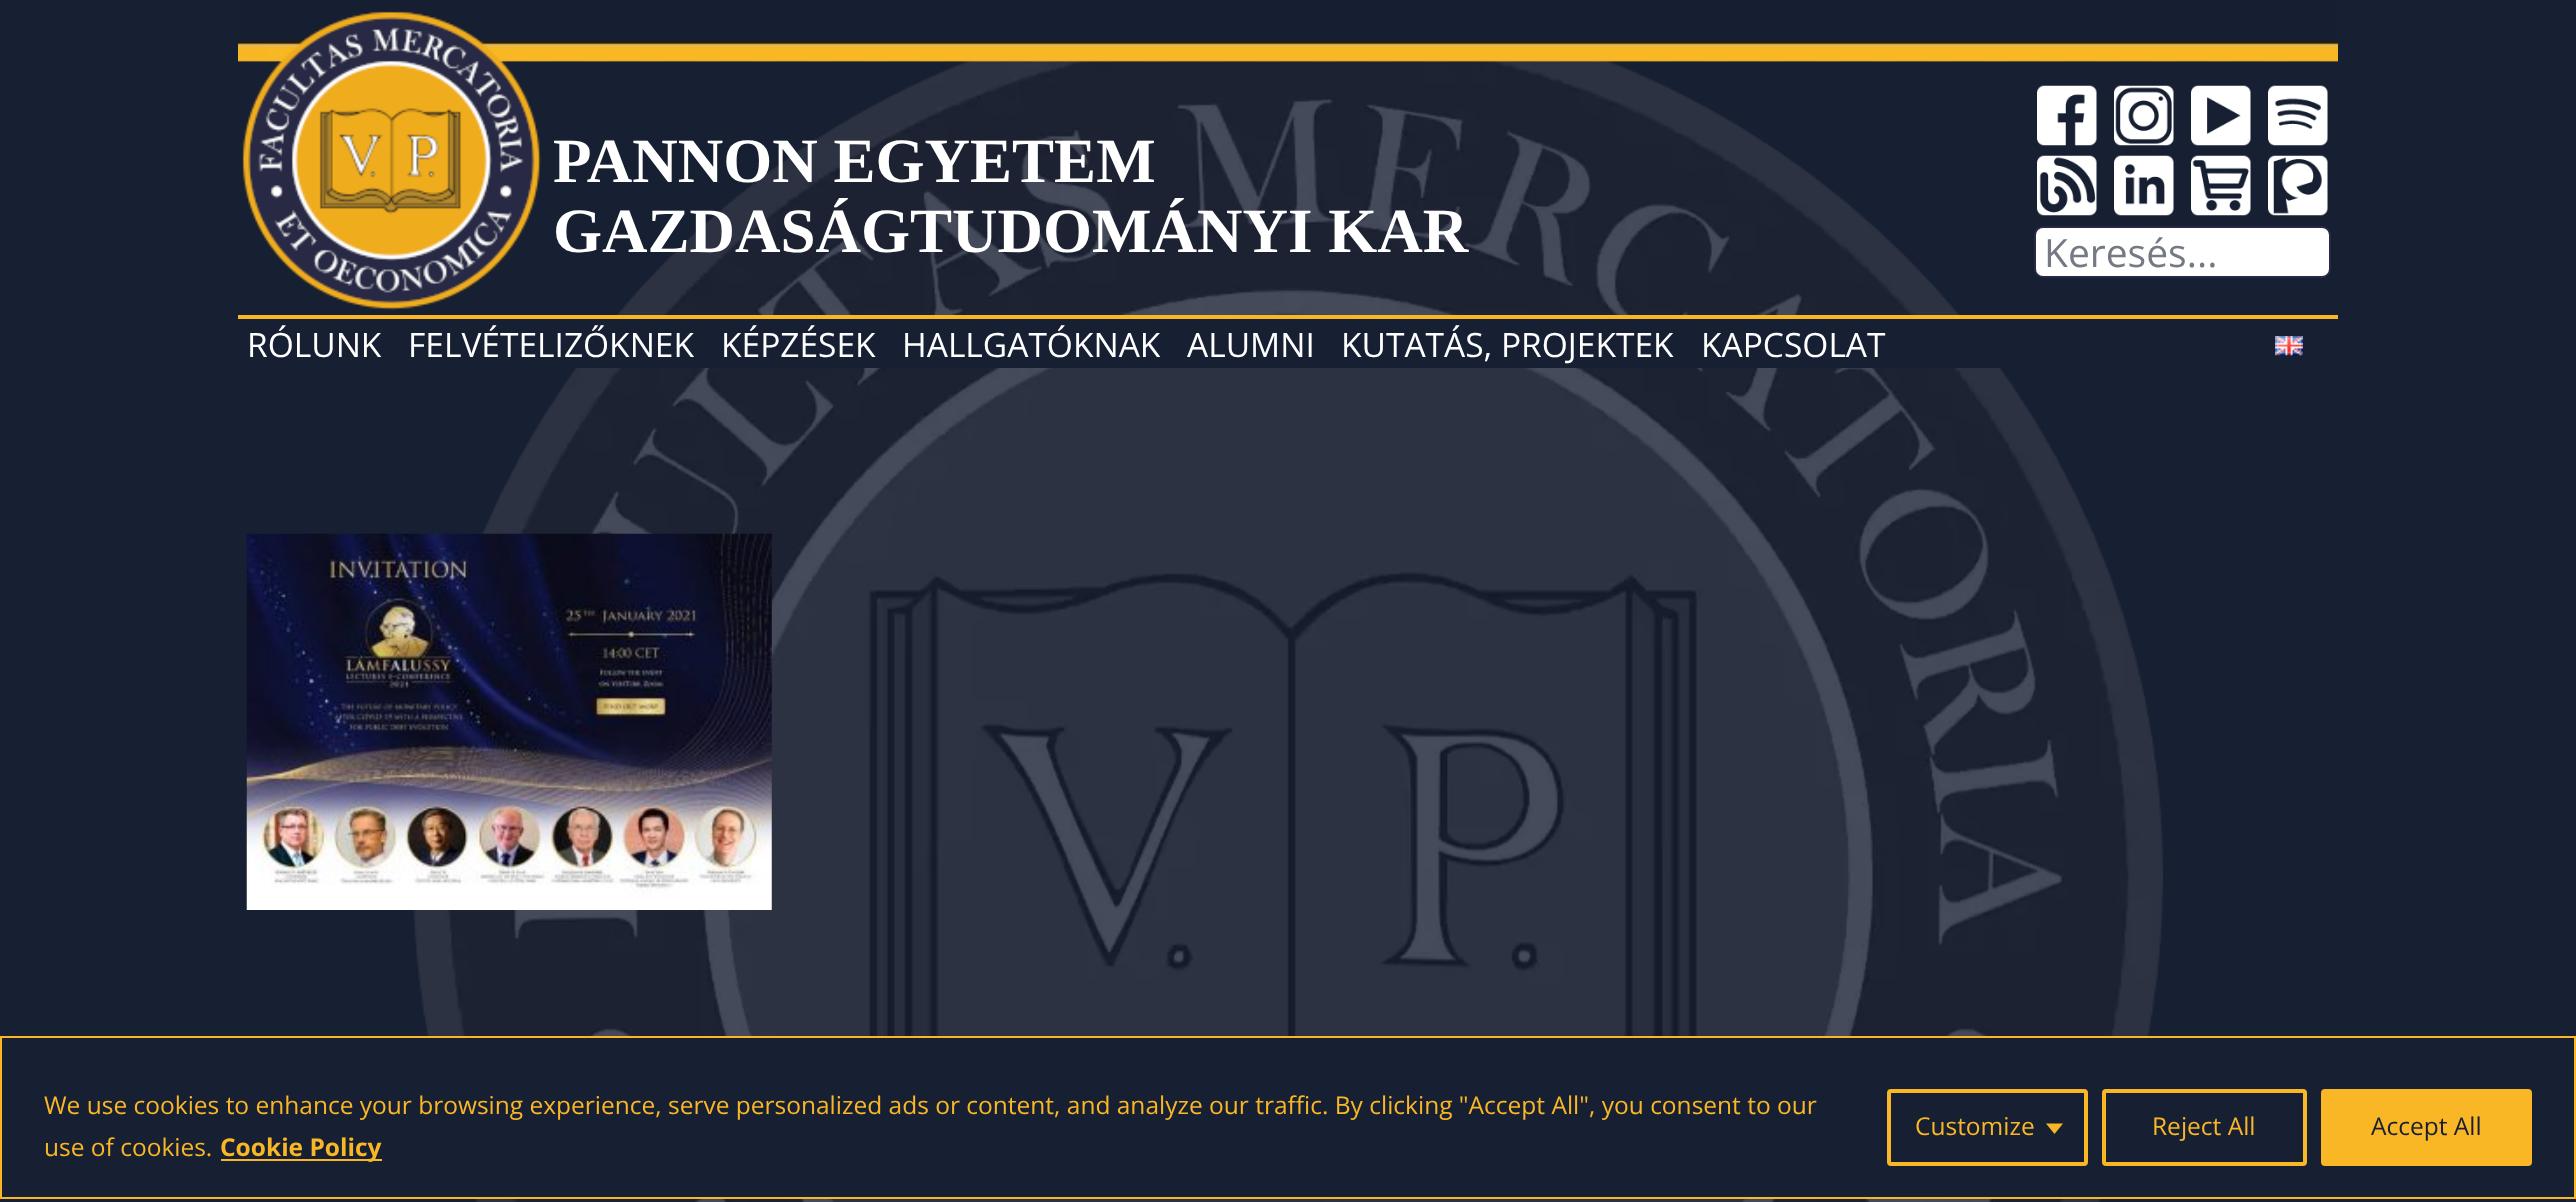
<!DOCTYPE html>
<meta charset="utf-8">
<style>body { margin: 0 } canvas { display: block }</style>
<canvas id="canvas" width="2576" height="1202"></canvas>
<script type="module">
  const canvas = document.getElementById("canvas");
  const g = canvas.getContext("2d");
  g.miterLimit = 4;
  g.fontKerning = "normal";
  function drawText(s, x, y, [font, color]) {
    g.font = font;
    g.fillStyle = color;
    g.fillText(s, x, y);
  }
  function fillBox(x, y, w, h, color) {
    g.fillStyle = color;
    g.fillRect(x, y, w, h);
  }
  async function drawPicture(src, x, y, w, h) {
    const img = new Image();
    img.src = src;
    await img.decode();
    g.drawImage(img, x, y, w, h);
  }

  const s1 = ["bold 63px Liberation Serif", "#FFFFFF"];
  const s2 = ["39px Open Sans", "#747984"];
  const s3 = ["33.5px Open Sans", "#FFFFFF"];
  const s4 = ["24.5px Open Sans", "#F9B726"];
  const s5 = ["bold 24.5px Open Sans", "#F9B726"];
  const s6 = ["24.5px Open Sans", "#171F32"];

  fillBox(0, 0, 2576, 1202, "#171F32");
  await drawPicture("pic1.png", 413, 60, 1750, 1142);
  await drawPicture("pic2.png", 238, 0, 2100, 310);
  drawText("PANNON EGYETEM", 553, 182, s1);
  drawText("GAZDASÁGTUDOMÁNYI KAR", 553, 252, s1);
  await drawPicture("pic3.png", 2037, 85, 60, 61);
  await drawPicture("pic4.png", 2114, 85, 60, 61);
  await drawPicture("pic5.png", 2191, 85, 60, 61);
  await drawPicture("pic6.png", 2268, 85, 60, 61);
  await drawPicture("pic7.png", 2037, 155, 60, 61);
  await drawPicture("pic8.png", 2114, 155, 60, 61);
  await drawPicture("pic9.png", 2191, 155, 60, 61);
  await drawPicture("pic10.png", 2268, 155, 60, 61);
  g.beginPath();
  g.roundRect(2035, 227, 295, 50, 8);
  g.fill();
  g.strokeStyle = "#272945";
  g.lineWidth = 2;
  g.stroke();
  drawText("Keresés...", 2044, 267, s2);
  fillBox(575, 319, 1426, 49, "#171F32");
  fillBox(238, 315, 2100, 4, "#F9B726");
  drawText("RÓLUNK", 247, 357, s3);
  drawText("FELVÉTELIZŐKNEK", 408, 357, s3);
  drawText("KÉPZÉSEK", 721, 357, s3);
  drawText("HALLGATÓKNAK", 902, 357, s3);
  drawText("ALUMNI", 1187, 357, s3);
  drawText("KUTATÁS, PROJEKTEK", 1341, 357, s3);
  drawText("KAPCSOLAT", 1701, 357, s3);
  await drawPicture("pic11.png", 2275, 336, 28, 20);
  await drawPicture("pic12.png", 246, 533, 526, 377);
  fillBox(428, 1038, 1720, 159, "#171F32");
  g.strokeStyle = "#F9B726";
  g.strokeRect(1, 1037, 2574, 161);
  drawText("We use cookies to enhance your browsing experience, serve personalized ads or content, and analyze our traffic. By clicking \"Accept All\", you consent to our", 44, 1114, s4);
  drawText("use of cookies.", 44, 1156, s4);
  fillBox(221, 1159, 161, 2, "#F9B726");
  drawText("Cookie Policy", 220, 1156, s5);
  g.beginPath();
  g.roundRect(1889, 1091, 197, 73, 2);
  g.lineWidth = 4;
  g.stroke();
  drawText("Customize", 1915, 1135, s4);
  g.beginPath();
  g.moveTo(2046, 1123.5);
  g.lineTo(2063, 1123.5);
  g.lineTo(2054.5, 1134);
  g.closePath();
  g.fill();
  g.beginPath();
  g.roundRect(2104, 1091, 201, 73, 2);
  g.stroke();
  drawText("Reject All", 2152, 1135, s4);
  g.beginPath();
  g.roundRect(2323, 1091, 207, 73, 2);
  g.fill();
  g.stroke();
  drawText("Accept All", 2371, 1135, s6);
</script>
